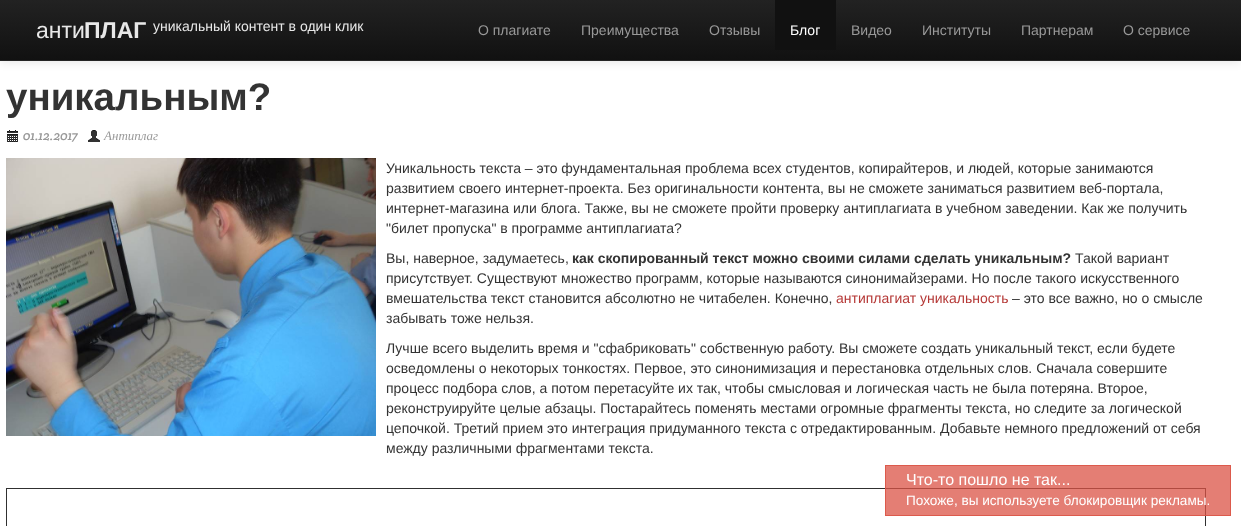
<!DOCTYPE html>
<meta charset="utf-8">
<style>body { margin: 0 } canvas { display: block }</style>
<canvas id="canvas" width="1241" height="526"></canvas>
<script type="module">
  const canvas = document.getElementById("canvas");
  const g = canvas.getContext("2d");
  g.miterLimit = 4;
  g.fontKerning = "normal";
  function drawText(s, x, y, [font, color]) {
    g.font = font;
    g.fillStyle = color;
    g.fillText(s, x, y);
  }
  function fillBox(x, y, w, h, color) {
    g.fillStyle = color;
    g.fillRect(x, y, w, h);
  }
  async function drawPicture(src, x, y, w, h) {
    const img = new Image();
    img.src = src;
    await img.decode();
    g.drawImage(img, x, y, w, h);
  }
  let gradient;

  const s1 = ["23px Liberation Sans", "#E8E8E8"];
  const s2 = ["bold 23px Liberation Sans", "#E8E8E8"];
  const s3 = ["14px Liberation Sans", "#E8E8E8"];
  const s4 = ["14px Liberation Sans", "#999999"];
  const s5 = ["14px Liberation Sans", "#FFFFFF"];
  const s6 = ["bold 38.5px Liberation Sans", "#333333"];
  const s7 = ["italic 13px Crete Round", "#999999"];
  const s8 = ["italic 13px Liberation Serif", "#999999"];
  const s9 = ["14px Liberation Sans", "#333333"];
  const s10 = ["bold 14px Liberation Sans", "#333333"];
  const s11 = ["14px Liberation Sans", "#B53836"];
  const s12 = ["16px Liberation Sans", "#FFFFFF"];
  const s13 = ["13.6px Liberation Sans", "#FFFFFF"];

  fillBox(0, 0, 1241, 526, "#FFFFFF");
  g.fillStyle = "rgba(0, 0, 0, 0.1)";
  g.filter = "blur(5px)";
  g.beginPath();
  g.rect(0, 1, 1241, 61);
  g.fill();
  g.filter = "none";
  gradient = g.createLinearGradient(621, 0, 621, 60);
  gradient.addColorStop(0, "#222222");
  gradient.addColorStop(1, "#111111");
  g.fillStyle = gradient;
  g.fillRect(0, 0, 1241, 60);
  fillBox(0, 60, 1241, 1, "#252525");
  drawText("анти", 36, 38, s1);
  drawText("ПЛАГ", 84, 38, s2);
  drawText("уникальный контент в один клик", 153, 31, s3);
  drawText("О плагиате", 478, 35, s4);
  drawText("Преимущества", 581, 35, s4);
  drawText("Отзывы", 709, 35, s4);
  fillBox(775, 0, 61, 50, "#111111");
  drawText("Блог", 790, 35, s5);
  drawText("Видео", 851, 35, s4);
  drawText("Институты", 922, 35, s4);
  drawText("Партнерам", 1021, 35, s4);
  drawText("О сервисе", 1123, 35, s4);
  drawText("уникальным?", 6, 110, s6);
  await drawPicture("pic1.png", 7, 130, 11, 12);
  drawText("01.12.2017", 23, 140, s7);
  await drawPicture("pic2.png", 88, 130, 12, 12);
  drawText("Антиплаг", 104, 140, s8);
  await drawPicture("pic3.png", 6, 158, 370, 278);
  drawText("Уникальность текста – это фундаментальная проблема всех студентов, копирайтеров, и людей, которые занимаются", 386, 173, s9);
  drawText("развитием своего интернет-проекта. Без оригинальности контента, вы не сможете заниматься развитием веб-портала,", 386, 193, s9);
  drawText("интернет-магазина или блога. Также, вы не сможете пройти проверку антиплагиата в учебном заведении. Как же получить", 386, 213, s9);
  drawText("\"билет пропуска\" в программе антиплагиата?", 386, 233, s9);
  drawText("Вы, наверное, задумаетесь,", 386, 263, s9);
  drawText("как скопированный текст можно своими силами сделать уникальным?", 572, 263, s10);
  drawText("Такой вариант", 1075, 263, s9);
  drawText("присутствует. Существуют множество программ, которые называются синонимайзерами. Но после такого искусственного", 386, 283, s9);
  drawText("вмешательства текст становится абсолютно не читабелен. Конечно,", 386, 303, s9);
  drawText("антиплагиат уникальность", 836, 303, s11);
  drawText("– это все важно, но о смысле", 1012, 303, s9);
  drawText("забывать тоже нельзя.", 386, 323, s9);
  drawText("Лучше всего выделить время и \"сфабриковать\" собственную работу. Вы сможете создать уникальный текст, если будете", 386, 353, s9);
  drawText("осведомлены о некоторых тонкостях. Первое, это синонимизация и перестановка отдельных слов. Сначала совершите", 386, 373, s9);
  drawText("процесс подбора слов, а потом перетасуйте их так, чтобы смысловая и логическая часть не была потеряна. Второе,", 386, 393, s9);
  drawText("реконструируйте целые абзацы. Постарайтесь поменять местами огромные фрагменты текста, но следите за логической", 386, 413, s9);
  drawText("цепочкой. Третий прием это интеграция придуманного текста с отредактированным. Добавьте немного предложений от себя", 386, 433, s9);
  drawText("между различными фрагментами текста.", 386, 453, s9);
  g.strokeStyle = "#303030";
  g.strokeRect(6.5, 488.5, 1199, 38);
  fillBox(885, 465, 346, 51, "rgba(219, 83, 69, 0.75)");
  g.strokeStyle = "rgba(219, 83, 69, 0.85)";
  g.strokeRect(885.5, 465.5, 345, 50);
  drawText("Что-то пошло не так...", 906, 485, s12);
  drawText("Похоже, вы используете блокировщик рекламы.", 906, 505, s13);
</script>
